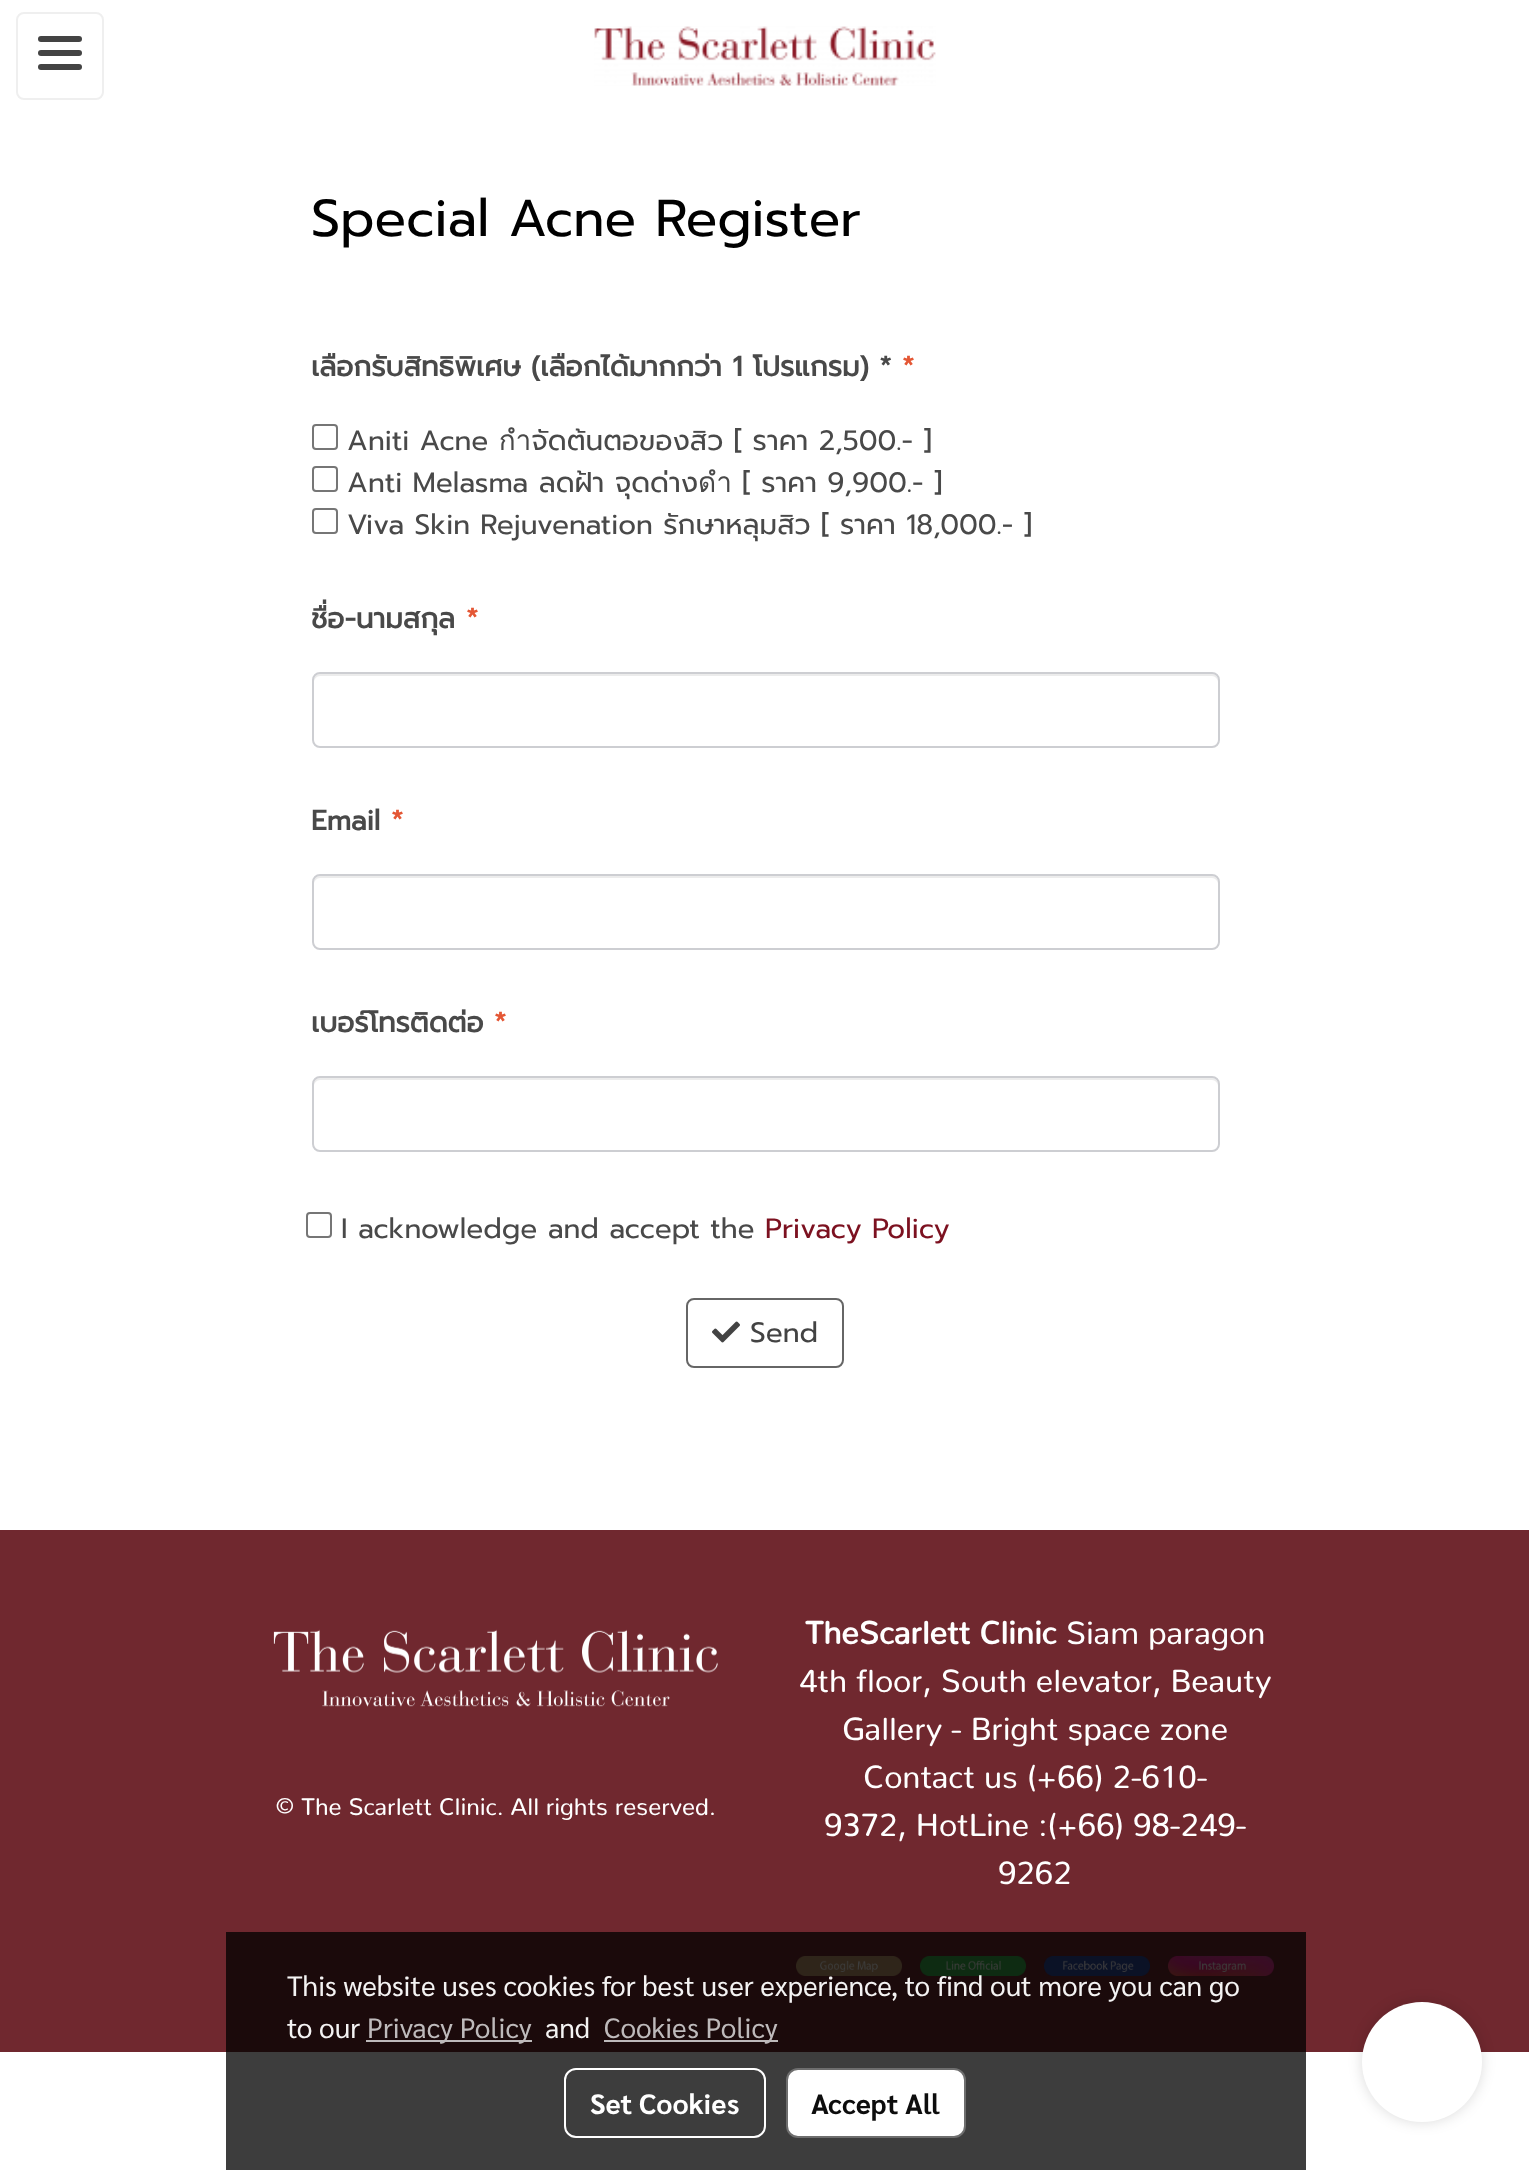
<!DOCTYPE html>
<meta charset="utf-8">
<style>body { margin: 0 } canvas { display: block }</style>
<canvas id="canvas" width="1529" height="2170"></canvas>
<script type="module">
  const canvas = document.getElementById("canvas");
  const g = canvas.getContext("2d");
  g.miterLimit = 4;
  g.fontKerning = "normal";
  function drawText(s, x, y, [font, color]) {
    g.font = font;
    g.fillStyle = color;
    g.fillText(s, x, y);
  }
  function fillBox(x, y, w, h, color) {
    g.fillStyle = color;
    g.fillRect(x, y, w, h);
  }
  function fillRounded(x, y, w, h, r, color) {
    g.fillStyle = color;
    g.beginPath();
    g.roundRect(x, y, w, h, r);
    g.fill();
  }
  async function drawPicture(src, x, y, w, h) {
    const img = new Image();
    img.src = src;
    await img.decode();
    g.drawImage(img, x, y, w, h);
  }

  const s1 = ["52px Prompt", "#000000"];
  const s2 = ["bold 28px Prompt", "#494949"];
  const s3 = ["bold 28px Prompt", "#E45735"];
  const s4 = ["28px Prompt", "#494949"];
  const s5 = ["28px Prompt", "#7C1120"];
  const s6 = ["28px Prompt", "#434343"];
  const s7 = ["24px Nunito", "#FFFFFF"];
  const s8 = ["bold 32px Nunito", "#FFFFFF"];
  const s9 = ["32px Nunito", "#FFFFFF"];
  const s10 = ["28px Sarabun", "#F4F3F3"];
  const s11 = ["28px Sarabun", "#BEBABB"];
  const s12 = ["bold 28px Sarabun", "#FFFFFF"];
  const s13 = ["bold 28px Sarabun", "#0D0D0D"];

  fillBox(0, 0, 1529, 2170, "#FFFFFF");
  fillBox(226, 2052, 1080, 118, "#3D3D3D");
  g.beginPath();
  g.roundRect(17, 13, 86, 86, 7);
  g.strokeStyle = "#EFEFEF";
  g.lineWidth = 2;
  g.stroke();
  fillRounded(38, 50, 44, 6, 3, "#434343");
  fillRounded(38, 36, 44, 6, 3, "#434343");
  fillRounded(38, 64, 44, 6, 3, "#434343");
  await drawPicture("pic1.png", 594, 26, 342, 60);
  drawText("Special Acne Register", 311, 236, s1);
  drawText("เลือกรับสิทธิพิเศษ (เลือกได้มากกว่า 1 โปรแกรม) *", 311, 376, s2);
  drawText("*", 902, 376, s3);
  g.beginPath();
  g.roundRect(313, 425, 24, 24, 3);
  g.strokeStyle = "#767676";
  g.stroke();
  drawText("Aniti Acne กำจัดต้นตอของสิว [ ราคา 2,500.- ]", 347, 450, s4);
  g.beginPath();
  g.roundRect(313, 467, 24, 24, 3);
  g.stroke();
  drawText("Anti Melasma ลดฝ้า จุดด่างดำ [ ราคา 9,900.- ]", 347, 492, s4);
  g.beginPath();
  g.roundRect(313, 509, 24, 24, 3);
  g.stroke();
  drawText("Viva Skin Rejuvenation รักษาหลุมสิว [ ราคา 18,000.- ]", 347, 534, s4);
  drawText("ชื่อ-นามสกุล", 311, 628, s2);
  drawText("*", 466, 628, s3);
  g.fillStyle = "#ECECEC";
  g.beginPath();
  g.moveTo(320, 676);
  g.lineTo(1212, 676);
  g.bezierCurveTo(1215, 676, 1218, 679, 1218, 682);
  g.lineTo(1218, 680);
  g.bezierCurveTo(1218, 677, 1215, 674, 1212, 674);
  g.lineTo(320, 674);
  g.bezierCurveTo(317, 674, 314, 677, 314, 680);
  g.lineTo(314, 682);
  g.bezierCurveTo(314, 679, 317, 676, 320, 676);
  g.closePath();
  g.fill();
  g.beginPath();
  g.roundRect(313, 673, 906, 74, 7);
  g.strokeStyle = "#CDCED2";
  g.stroke();
  drawText("Email", 311, 830, s2);
  drawText("*", 391, 830, s3);
  g.fillStyle = "#ECECEC";
  g.beginPath();
  g.moveTo(320, 878);
  g.lineTo(1212, 878);
  g.bezierCurveTo(1215, 878, 1218, 881, 1218, 884);
  g.lineTo(1218, 882);
  g.bezierCurveTo(1218, 879, 1215, 876, 1212, 876);
  g.lineTo(320, 876);
  g.bezierCurveTo(317, 876, 314, 879, 314, 882);
  g.lineTo(314, 884);
  g.bezierCurveTo(314, 881, 317, 878, 320, 878);
  g.closePath();
  g.fill();
  g.beginPath();
  g.roundRect(313, 875, 906, 74, 7);
  g.stroke();
  drawText("เบอร์โทรติดต่อ", 311, 1032, s2);
  drawText("*", 494, 1032, s3);
  g.fillStyle = "#ECECEC";
  g.beginPath();
  g.moveTo(320, 1080);
  g.lineTo(1212, 1080);
  g.bezierCurveTo(1215, 1080, 1218, 1083, 1218, 1086);
  g.lineTo(1218, 1084);
  g.bezierCurveTo(1218, 1081, 1215, 1078, 1212, 1078);
  g.lineTo(320, 1078);
  g.bezierCurveTo(317, 1078, 314, 1081, 314, 1084);
  g.lineTo(314, 1086);
  g.bezierCurveTo(314, 1083, 317, 1080, 320, 1080);
  g.closePath();
  g.fill();
  g.beginPath();
  g.roundRect(313, 1077, 906, 74, 7);
  g.stroke();
  g.beginPath();
  g.roundRect(307, 1213, 24, 24, 3);
  g.strokeStyle = "#767676";
  g.stroke();
  drawText("I acknowledge and accept the", 341, 1238, s4);
  drawText("Privacy Policy", 765, 1238, s5);
  g.beginPath();
  g.roundRect(687, 1299, 156, 68, 7);
  g.strokeStyle = "#666666";
  g.stroke();
  await drawPicture("pic2.png", 712, 1321, 28, 22);
  drawText("Send", 750, 1342, s6);
  fillBox(0, 1530, 1529, 522, "#70282F");
  fillBox(226, 1932, 1080, 120, "#1B0A0B");
  await drawPicture("pic3.png", 273, 1629, 445, 78);
  drawText("© The Scarlett Clinic. All rights reserved.", 275, 1815, s7);
  drawText("TheScarlett Clinic", 805, 1644, s8);
  drawText("Siam paragon", 1066, 1644, s9);
  drawText("4th floor, South elevator, Beauty", 799, 1692, s9);
  drawText("Gallery - Bright space zone", 842, 1740, s9);
  drawText("Contact us (+66) 2-610-", 863, 1788, s9);
  drawText("9372, HotLine :(+66) 98-249-", 824, 1836, s9);
  drawText("9262", 998, 1884, s9);
  await drawPicture("pic4.png", 796, 1956, 106, 20);
  await drawPicture("pic5.png", 920, 1956, 106, 20);
  await drawPicture("pic6.png", 1044, 1956, 106, 20);
  await drawPicture("pic7.png", 1168, 1956, 106, 20);
  drawText("This website uses cookies for best user experience, to find out more you can go", 287, 1996, s10);
  drawText("to our", 287, 2038, s10);
  fillBox(366, 2040, 166, 2, "#BEBABB");
  drawText("Privacy Policy", 367, 2038, s11);
  drawText("and", 545, 2038, s10);
  fillBox(604, 2040, 174, 2, "#BEBABB");
  drawText("Cookies Policy", 604, 2038, s11);
  g.beginPath();
  g.roundRect(565, 2069, 200, 68, 11);
  g.strokeStyle = "#FFFFFF";
  g.stroke();
  drawText("Set Cookies", 590, 2114, s12);
  g.beginPath();
  g.roundRect(787, 2069, 178, 68, 11);
  g.fill();
  g.strokeStyle = "#6E6E6E";
  g.stroke();
  drawText("Accept All", 811, 2114, s13);
  g.fillStyle = "rgba(0, 0, 0, 0.14)";
  g.filter = "blur(7px)";
  g.beginPath();
  g.roundRect(1362, 2002, 120, 120, 60);
  g.fill();
  g.filter = "none";
  g.fillStyle = "#FFFFFF";
  g.beginPath();
  g.arc(1422, 2062, 60, 0, Math.PI * 2);
  g.fill();
</script>
